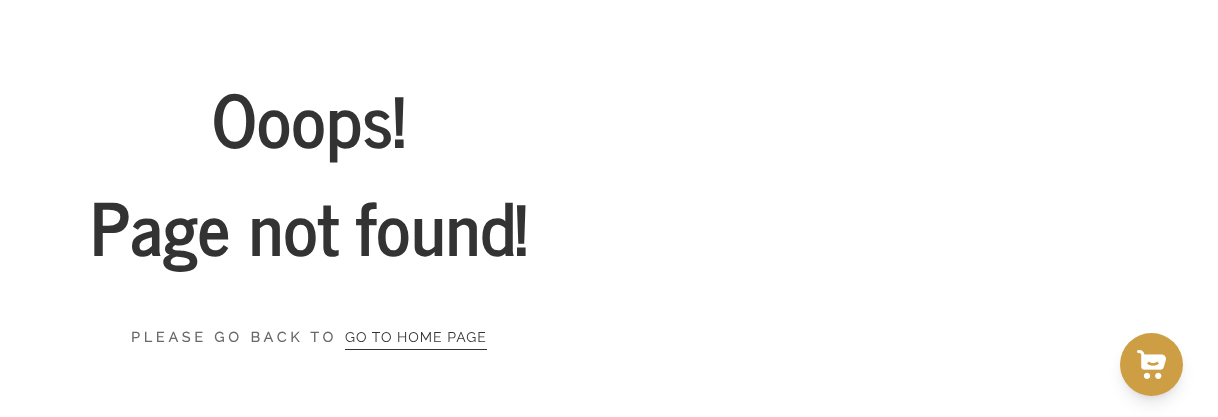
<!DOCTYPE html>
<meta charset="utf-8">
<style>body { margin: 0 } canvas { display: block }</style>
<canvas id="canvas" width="1218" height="417"></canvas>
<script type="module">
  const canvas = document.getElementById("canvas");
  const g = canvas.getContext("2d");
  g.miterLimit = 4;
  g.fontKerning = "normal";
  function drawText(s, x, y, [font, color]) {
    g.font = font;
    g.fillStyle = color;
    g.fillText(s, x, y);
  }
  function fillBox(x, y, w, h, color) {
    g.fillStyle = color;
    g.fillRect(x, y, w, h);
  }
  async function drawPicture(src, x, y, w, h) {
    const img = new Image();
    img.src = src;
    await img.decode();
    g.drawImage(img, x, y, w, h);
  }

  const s1 = ["bold 72px News Cycle", "#333333"];
  const s2 = ["bold 14px Raleway", "#696969"];
  const s3 = ["14px Raleway", "#333333"];

  fillBox(0, 0, 1218, 417, "#FFFFFF");
  drawText("Ooops!", 212, 148, s1);
  drawText("Page not found!", 90, 256, s1);
  g.letterSpacing = "4px";
  drawText("PLEASE GO BACK TO", 131, 342, s2);
  fillBox(345, 349, 142, 1, "#333333");
  g.letterSpacing = "1px";
  drawText("GO TO HOME PAGE", 345, 342, s3);
  g.fillStyle = "rgba(0, 0, 0, 0.1)";
  g.filter = "blur(3px)";
  g.beginPath();
  g.roundRect(1124, 341, 55, 55, 27.5);
  g.fill();
  g.filter = "none";
  g.filter = "blur(7.5px)";
  g.beginPath();
  g.roundRect(1123, 346, 57, 57, 28.5);
  g.fill();
  g.filter = "none";
  g.fillStyle = "#CD9E44";
  g.beginPath();
  g.arc(1151.5, 364.5, 31.5, 0, Math.PI * 2);
  g.fill();
  await drawPicture("pic1.png", 1137, 350, 29, 29);
</script>
